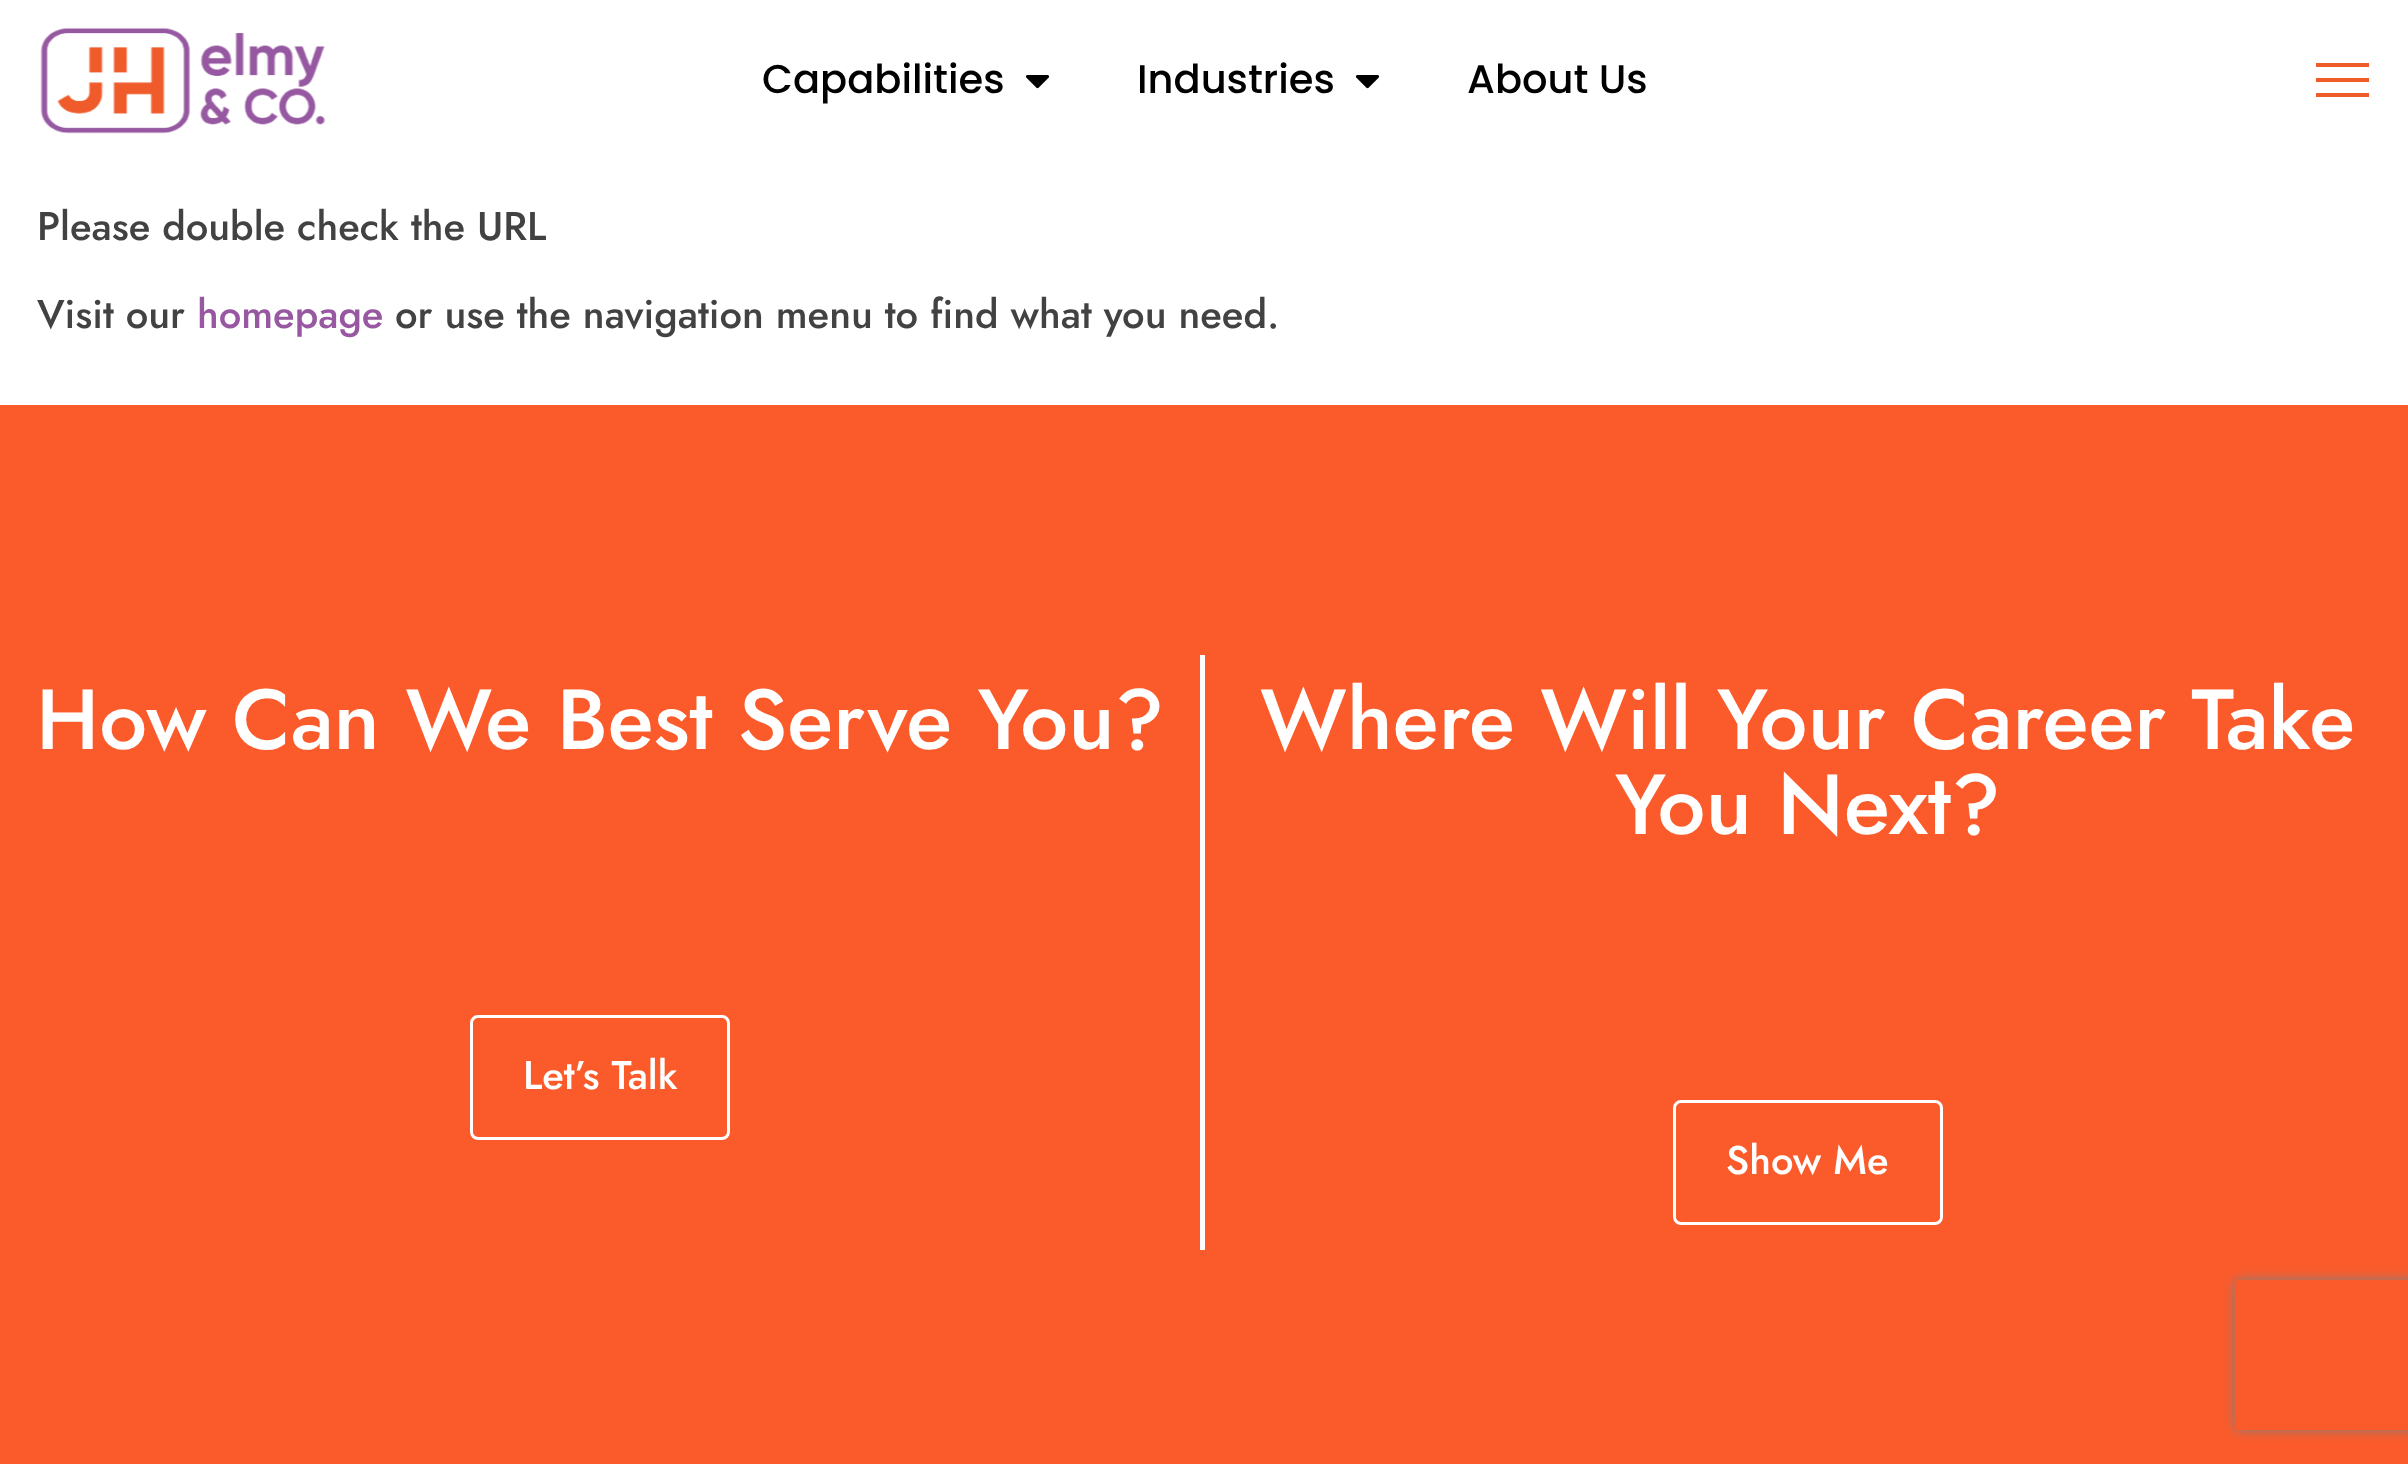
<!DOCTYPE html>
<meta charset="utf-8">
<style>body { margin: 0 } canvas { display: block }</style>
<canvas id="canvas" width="2408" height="1464"></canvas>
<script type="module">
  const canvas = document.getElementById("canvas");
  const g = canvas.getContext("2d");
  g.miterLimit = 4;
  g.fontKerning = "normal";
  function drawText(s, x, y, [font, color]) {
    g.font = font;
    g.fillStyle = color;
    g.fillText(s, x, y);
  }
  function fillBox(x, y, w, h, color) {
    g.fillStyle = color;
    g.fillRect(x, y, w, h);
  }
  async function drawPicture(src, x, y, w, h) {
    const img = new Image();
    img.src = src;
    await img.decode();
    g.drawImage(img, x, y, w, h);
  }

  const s1 = ["500 40px Poppins", "#000000"];
  const s2 = ["500 40px Jost", "#424242"];
  const s3 = ["500 40px Jost", "#9757A1"];
  const s4 = ["500 85px Jost", "#FFFFFF"];
  const s5 = ["500 40px Jost", "#FFFFFF"];

  fillBox(0, 0, 2408, 1464, "#FFFFFF");
  await drawPicture("pic1.png", 40, 27, 286, 107);
  drawText("Capabilities", 762, 93, s1);
  await drawPicture("pic2.png", 1025, 75, 25, 14);
  drawText("Industries", 1137, 93, s1);
  await drawPicture("pic2.png", 1355, 75, 25, 14);
  drawText("About Us", 1467, 93, s1);
  fillBox(2316, 63, 53, 4, "#EF5B29");
  fillBox(2316, 78, 53, 4, "#EF5B29");
  fillBox(2316, 93, 53, 4, "#EF5B29");
  drawText("Please double check the URL", 37, 240, s2);
  drawText("Visit our", 37, 328, s2);
  drawText("homepage", 197, 328, s3);
  drawText("or use the navigation menu to find what you need.", 395, 328, s2);
  fillBox(0, 405, 2408, 1059, "#FB5B2B");
  fillBox(1200, 655, 5, 595, "#FFFFFF");
  drawText("How Can We Best Serve You?", 36, 749, s4);
  g.beginPath();
  g.roundRect(471.5, 1016.5, 257, 122, 6.5);
  g.strokeStyle = "#FFFFFF";
  g.lineWidth = 3;
  g.stroke();
  drawText("Let’s Talk", 523, 1089, s5);
  drawText("Where Will Your Career Take", 1260, 749, s4);
  drawText("You Next?", 1615, 834, s4);
  g.beginPath();
  g.roundRect(1674.5, 1101.5, 267, 122, 6.5);
  g.stroke();
  drawText("Show Me", 1726, 1174, s5);
  g.save();
  g.beginPath();
  g.moveTo(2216, 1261);
  g.lineTo(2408, 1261);
  g.lineTo(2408, 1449);
  g.lineTo(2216, 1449);
  g.closePath();
  g.moveTo(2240, 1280);
  g.lineTo(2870, 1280);
  g.bezierCurveTo(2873, 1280, 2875, 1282, 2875, 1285);
  g.lineTo(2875, 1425);
  g.bezierCurveTo(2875, 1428, 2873, 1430, 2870, 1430);
  g.lineTo(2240, 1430);
  g.bezierCurveTo(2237, 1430, 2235, 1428, 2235, 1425);
  g.lineTo(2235, 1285);
  g.bezierCurveTo(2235, 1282, 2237, 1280, 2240, 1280);
  g.closePath();
  g.clip("evenodd");
  g.fillStyle = "#808080";
  g.filter = "blur(6px)";
  g.beginPath();
  g.roundRect(2235, 1280, 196, 150, 5);
  g.fill();
  g.filter = "none";
  g.restore();
</script>
